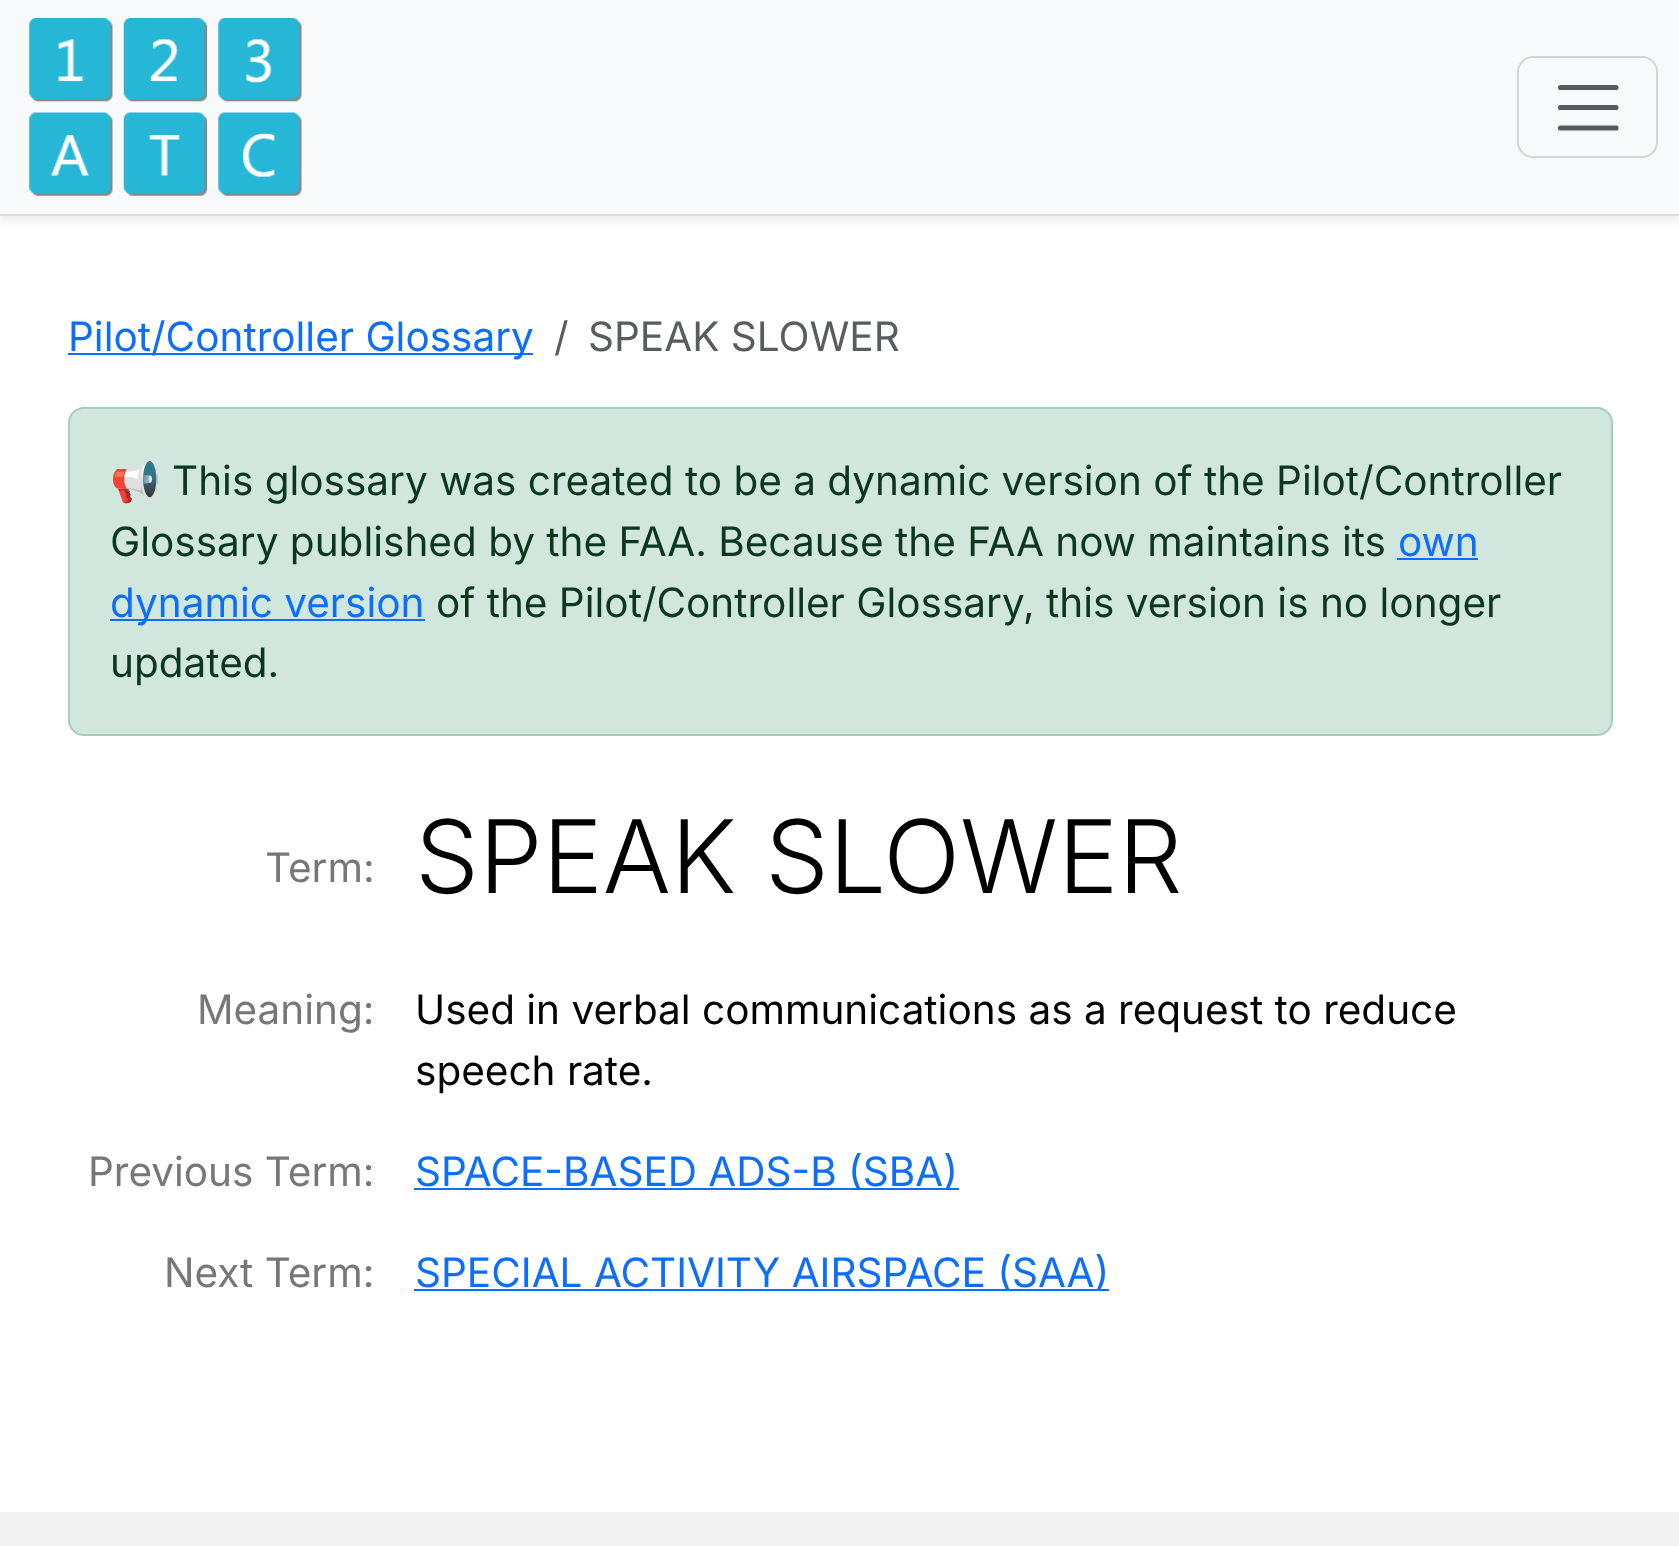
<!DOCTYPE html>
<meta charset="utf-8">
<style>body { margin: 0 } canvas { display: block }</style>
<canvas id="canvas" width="1679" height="1546"></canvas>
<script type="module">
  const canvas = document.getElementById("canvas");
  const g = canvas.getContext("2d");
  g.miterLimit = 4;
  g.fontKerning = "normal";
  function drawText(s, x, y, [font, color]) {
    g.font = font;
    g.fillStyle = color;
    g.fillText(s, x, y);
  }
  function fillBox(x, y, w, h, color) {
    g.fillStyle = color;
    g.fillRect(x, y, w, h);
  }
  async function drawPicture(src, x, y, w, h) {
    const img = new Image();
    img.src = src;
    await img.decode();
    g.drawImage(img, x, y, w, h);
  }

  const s1 = ["40.5px Inter", "#0D6EFD"];
  const s2 = ["40.5px Inter", "#595C5F"];
  const s3 = ["40.5px Noto Color Emoji", "#0A3622"];
  const s4 = ["40.5px Inter", "#0A3622"];
  const s5 = ["40.5px Inter", "#777777"];
  const s6 = ["300 101.25px Inter", "#000000"];
  const s7 = ["40.5px Inter", "#000000"];

  fillBox(0, 0, 1679, 1546, "#FFFFFF");
  g.fillStyle = "rgba(0, 0, 0, 0.07)";
  g.filter = "blur(5px)";
  g.beginPath();
  g.rect(0, 5, 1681, 216);
  g.fill();
  g.filter = "none";
  fillBox(0, 0, 1679, 214, "#F8F9FA");
  fillBox(0, 214, 1679, 2, "#DDDDDD");
  await drawPicture("pic1.png", 29, 18, 273, 178);
  g.beginPath();
  g.roundRect(1518, 57, 139, 100, 15);
  g.strokeStyle = "#D3D4D5";
  g.lineWidth = 2;
  g.stroke();
  g.beginPath();
  g.moveTo(1560.5, 87.5);
  g.lineTo(1616, 87.5);
  g.moveTo(1560.5, 107.5);
  g.lineTo(1616, 107.5);
  g.moveTo(1560.5, 128);
  g.lineTo(1616, 128);
  g.strokeStyle = "#575A5D";
  g.lineWidth = 5.1;
  g.lineCap = "round";
  g.stroke();
  fillBox(68, 353, 465, 2, "#0D6EFD");
  drawText("Pilot/Controller Glossary", 68, 351, s1);
  drawText("/", 554, 351, s2);
  drawText("SPEAK SLOWER", 588, 351, s2);
  g.fillStyle = "#D1E7DD";
  g.beginPath();
  g.roundRect(69, 408, 1543, 327, 15);
  g.fill();
  g.strokeStyle = "#A3CFBB";
  g.lineWidth = 2;
  g.stroke();
  drawText("📢", 110, 495, s3);
  drawText("This glossary was created to be a dynamic version of the Pilot/Controller", 172, 495, s4);
  drawText("Glossary published by the FAA. Because the FAA now maintains its", 110, 556, s4);
  drawText("own", 1398, 556, s1);
  fillBox(1397, 558, 81, 2, "#0D6EFD");
  fillBox(110, 619, 315, 2, "#0D6EFD");
  drawText("dynamic version", 110, 617, s1);
  drawText("of the Pilot/Controller Glossary, this version is no longer", 436, 617, s4);
  drawText("updated.", 110, 677, s4);
  drawText("Term:", 265, 882, s5);
  drawText("SPEAK SLOWER", 415, 893, s6);
  drawText("Meaning:", 197, 1024, s5);
  drawText("Used in verbal communications as a request to reduce", 415, 1024, s7);
  drawText("speech rate.", 415, 1085, s7);
  drawText("Previous Term:", 88, 1186, s5);
  fillBox(414, 1188, 545, 2, "#0D6EFD");
  drawText("SPACE-BASED ADS-B (SBA)", 415, 1186, s1);
  drawText("Next Term:", 164, 1287, s5);
  fillBox(414, 1289, 695, 2, "#0D6EFD");
  drawText("SPECIAL ACTIVITY AIRSPACE (SAA)", 415, 1287, s1);
  fillBox(0, 1512, 1679, 34, "#F3F3F3");
</script>
